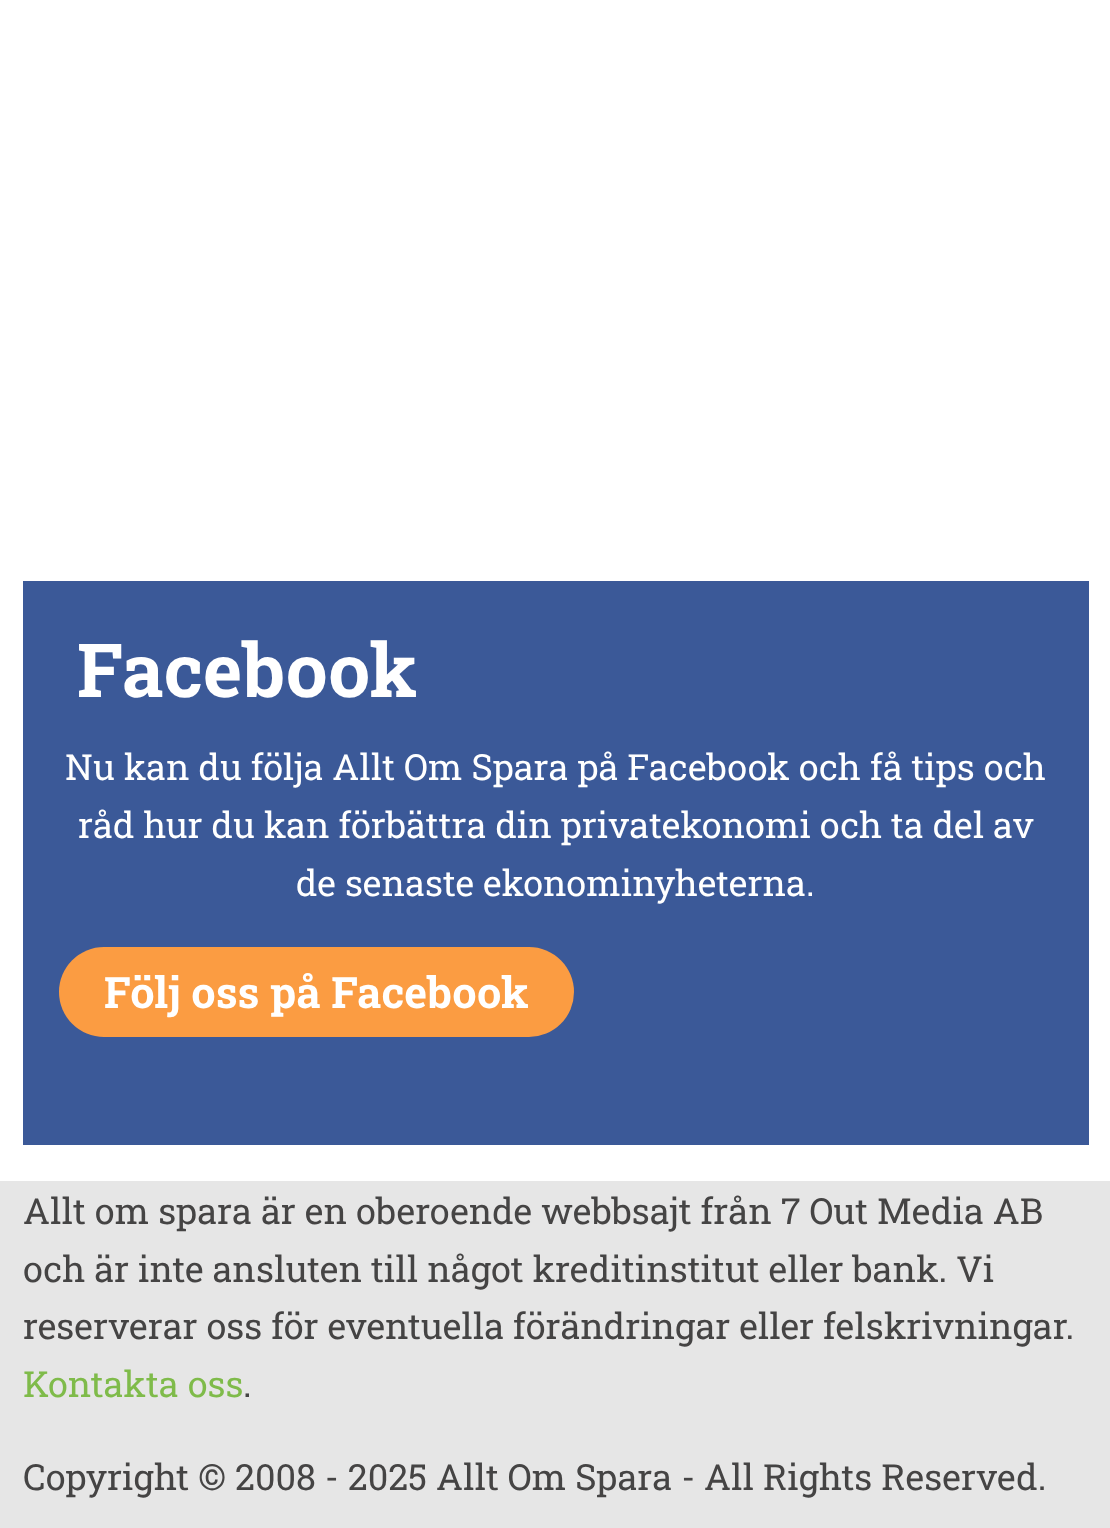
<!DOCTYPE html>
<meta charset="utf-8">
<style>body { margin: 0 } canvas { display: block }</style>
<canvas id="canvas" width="1110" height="1528"></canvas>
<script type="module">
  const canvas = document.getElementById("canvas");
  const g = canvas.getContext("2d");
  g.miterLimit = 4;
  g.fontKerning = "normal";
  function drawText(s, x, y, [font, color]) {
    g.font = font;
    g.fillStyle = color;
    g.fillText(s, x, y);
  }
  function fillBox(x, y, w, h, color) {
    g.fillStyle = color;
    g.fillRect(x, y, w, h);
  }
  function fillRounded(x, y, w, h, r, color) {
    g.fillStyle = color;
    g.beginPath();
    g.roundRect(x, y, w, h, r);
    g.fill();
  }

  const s1 = ["bold 74.5px Roboto Slab", "#FFFFFF"];
  const s2 = ["36px Roboto Slab", "#FFFFFF"];
  const s3 = ["bold 43.25px Roboto Slab", "#FFFFFF"];
  const s4 = ["36px Roboto Slab", "#454444"];
  const s5 = ["36px Roboto Slab", "#7FBB4A"];

  fillBox(0, 0, 1110, 1528, "#FFFFFF");
  fillBox(23, 581, 1066, 564, "#3B5998");
  drawText("Facebook", 77, 697, s1);
  drawText("Nu kan du följa Allt Om Spara på Facebook och få tips och", 65, 780, s2);
  drawText("råd hur du kan förbättra din privatekonomi och ta del av", 78, 838, s2);
  drawText("de senaste ekonominyheterna.", 296, 896, s2);
  fillRounded(59, 947, 515, 90, 45, "#FB9C42");
  drawText("Följ oss på Facebook", 104, 1008, s3);
  fillBox(0, 1181, 1110, 347, "#E6E6E6");
  drawText("Allt om spara är en oberoende webbsajt från 7 Out Media AB", 23, 1224, s4);
  drawText("och är inte ansluten till något kreditinstitut eller bank. Vi", 23, 1282, s4);
  drawText("reserverar oss för eventuella förändringar eller felskrivningar.", 23, 1339, s4);
  drawText("Kontakta oss", 23, 1397, s5);
  drawText(".", 243, 1397, s4);
  drawText("Copyright © 2008 - 2025 Allt Om Spara - All Rights Reserved.", 23, 1490, s4);
</script>
